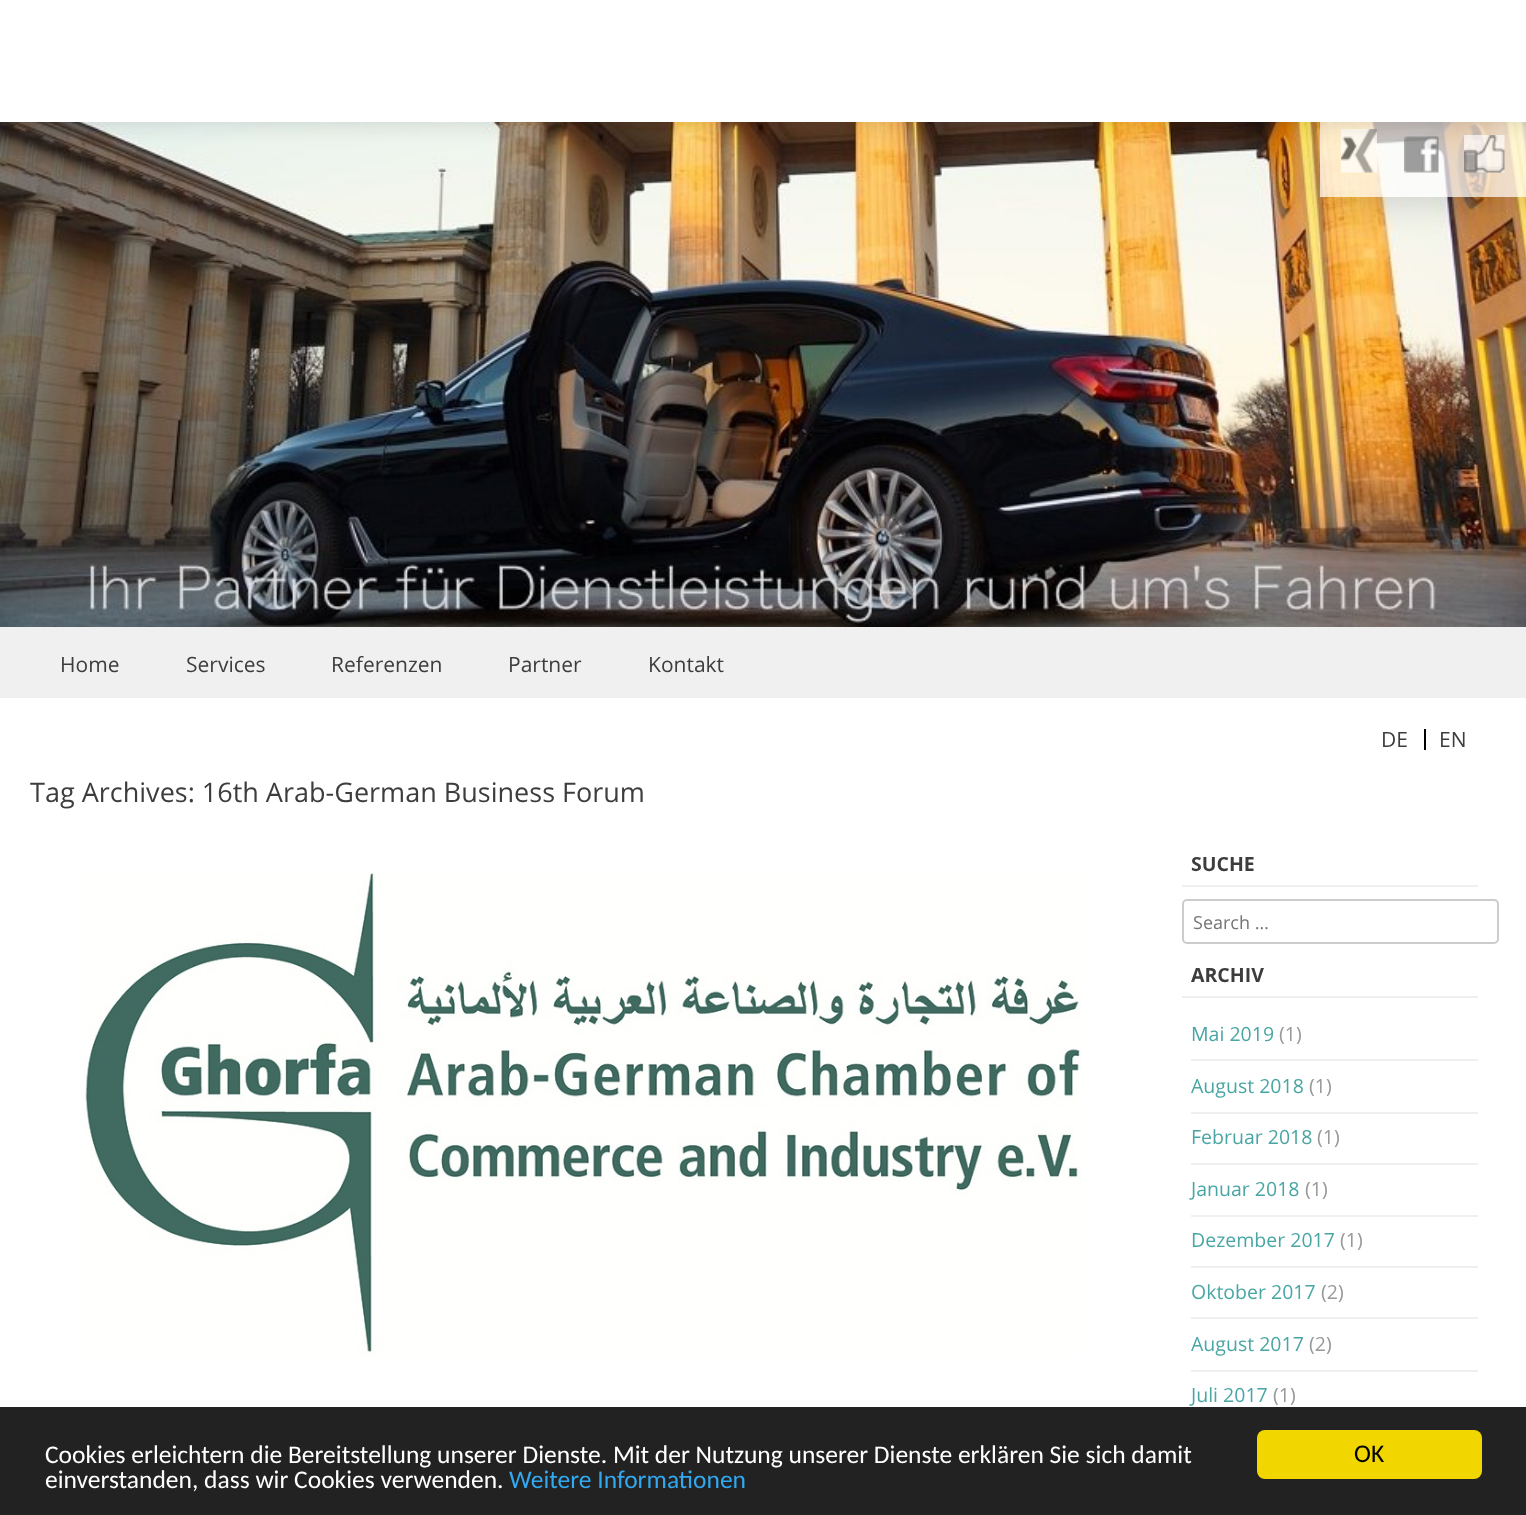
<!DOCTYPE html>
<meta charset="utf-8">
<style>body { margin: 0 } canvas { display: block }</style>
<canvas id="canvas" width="1526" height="1515"></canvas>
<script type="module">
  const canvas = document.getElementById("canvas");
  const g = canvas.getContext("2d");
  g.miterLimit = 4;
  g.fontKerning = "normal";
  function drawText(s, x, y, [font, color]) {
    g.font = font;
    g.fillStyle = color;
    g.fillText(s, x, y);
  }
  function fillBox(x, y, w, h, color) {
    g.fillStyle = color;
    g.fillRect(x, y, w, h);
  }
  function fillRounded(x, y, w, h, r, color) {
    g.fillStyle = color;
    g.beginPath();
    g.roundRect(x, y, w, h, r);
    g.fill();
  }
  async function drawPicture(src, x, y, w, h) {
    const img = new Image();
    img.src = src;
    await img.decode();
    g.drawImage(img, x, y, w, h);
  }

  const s1 = ["21px Open Sans", "#3D3D3D"];
  const s2 = ["27px Open Sans", "#3D3D3D"];
  const s3 = ["bold 19.5px Open Sans", "#3D3D3D"];
  const s4 = ["18px Open Sans", "#757575"];
  const s5 = ["19.5px Open Sans", "#49A6A4"];
  const s6 = ["19.5px Open Sans", "#999999"];
  const s7 = ["25.5px Carlito", "#FFFFFF"];
  const s8 = ["25.5px Carlito", "#31A8F0"];
  const s9 = ["25.5px Carlito", "#000000"];

  fillBox(0, 0, 1526, 1515, "#FFFFFF");
  await drawPicture("pic4.png", 0, 122, 1526, 505);
  g.save();
  g.beginPath();
  g.moveTo(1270, 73);
  g.lineTo(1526, 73);
  g.lineTo(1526, 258);
  g.lineTo(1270, 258);
  g.closePath();
  g.moveTo(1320, 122);
  g.lineTo(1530, 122);
  g.lineTo(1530, 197);
  g.lineTo(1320, 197);
  g.closePath();
  g.clip("evenodd");
  g.fillStyle = "rgba(0, 0, 0, 0.15)";
  g.filter = "blur(18px)";
  g.beginPath();
  g.rect(1325, 128, 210, 75);
  g.fill();
  g.filter = "none";
  g.restore();
  fillBox(1320, 122, 206, 75, "rgba(255, 255, 255, 0.7)");
  await drawPicture("pic1.png", 1341, 129, 36, 44);
  await drawPicture("pic2.png", 1404, 136, 35, 37);
  await drawPicture("pic3.png", 1464, 135, 41, 38);
  g.fillStyle = "rgba(0, 0, 0, 0.1)";
  g.filter = "blur(10px)";
  g.beginPath();
  g.rect(-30, 5, 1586, 121);
  g.fill();
  g.filter = "none";
  fillBox(0, 0, 1526, 122, "#FFFFFF");
  fillBox(0, 627, 1526, 71, "#F0F0F0");
  drawText("Home", 60, 672, s1);
  drawText("Services", 186, 672, s1);
  drawText("Referenzen", 331, 672, s1);
  drawText("Partner", 508, 672, s1);
  drawText("Kontakt", 648, 672, s1);
  fillBox(1424, 729, 2, 21, "#000000");
  drawText("DE", 1381, 747, s1);
  drawText("EN", 1439, 747, s1);
  drawText("Tag Archives: 16th Arab-German Business Forum", 30, 802, s2);
  await drawPicture("pic5.png", 83, 872, 999, 485);
  fillBox(1182, 885, 296, 2, "#EFEFEF");
  drawText("SUCHE", 1191, 871, s3);
  g.beginPath();
  g.roundRect(1183, 900, 315, 43, 4);
  g.strokeStyle = "#CCCCCC";
  g.lineWidth = 2;
  g.stroke();
  drawText("Search …", 1193, 929, s4);
  fillBox(1182, 996, 296, 2, "#EFEFEF");
  drawText("ARCHIV", 1191, 982, s3);
  fillBox(1191, 1059, 287, 2, "#EFEFEF");
  drawText("Mai 2019", 1191, 1041, s5);
  drawText("(1)", 1279, 1041, s6);
  fillBox(1191, 1112, 287, 2, "#EFEFEF");
  drawText("August 2018", 1191, 1093, s5);
  drawText("(1)", 1309, 1093, s6);
  fillBox(1191, 1163, 287, 2, "#EFEFEF");
  drawText("Februar 2018", 1191, 1144, s5);
  drawText("(1)", 1317, 1144, s6);
  fillBox(1191, 1215, 287, 2, "#EFEFEF");
  drawText("Januar 2018", 1191, 1196, s5);
  drawText("(1)", 1305, 1196, s6);
  fillBox(1191, 1266, 287, 2, "#EFEFEF");
  drawText("Dezember 2017", 1191, 1247, s5);
  drawText("(1)", 1340, 1247, s6);
  fillBox(1191, 1317, 287, 2, "#EFEFEF");
  drawText("Oktober 2017", 1191, 1299, s5);
  drawText("(2)", 1321, 1299, s6);
  fillBox(1191, 1370, 287, 2, "#EFEFEF");
  drawText("August 2017", 1191, 1351, s5);
  drawText("(2)", 1309, 1351, s6);
  drawText("Juli 2017", 1191, 1402, s5);
  drawText("(1)", 1273, 1402, s6);
  fillBox(0, 1407, 1526, 108, "#222222");
  drawText("Cookies erleichtern die Bereitstellung unserer Dienste. Mit der Nutzung unserer Dienste erklären Sie sich damit", 45, 1463, s7);
  drawText("einverstanden, dass wir Cookies verwenden.", 45, 1488, s7);
  drawText("Weitere Informationen", 509, 1488, s8);
  fillRounded(1257, 1430, 225, 49, 8, "#F1D600");
  drawText("OK", 1354, 1462, s9);
</script>
